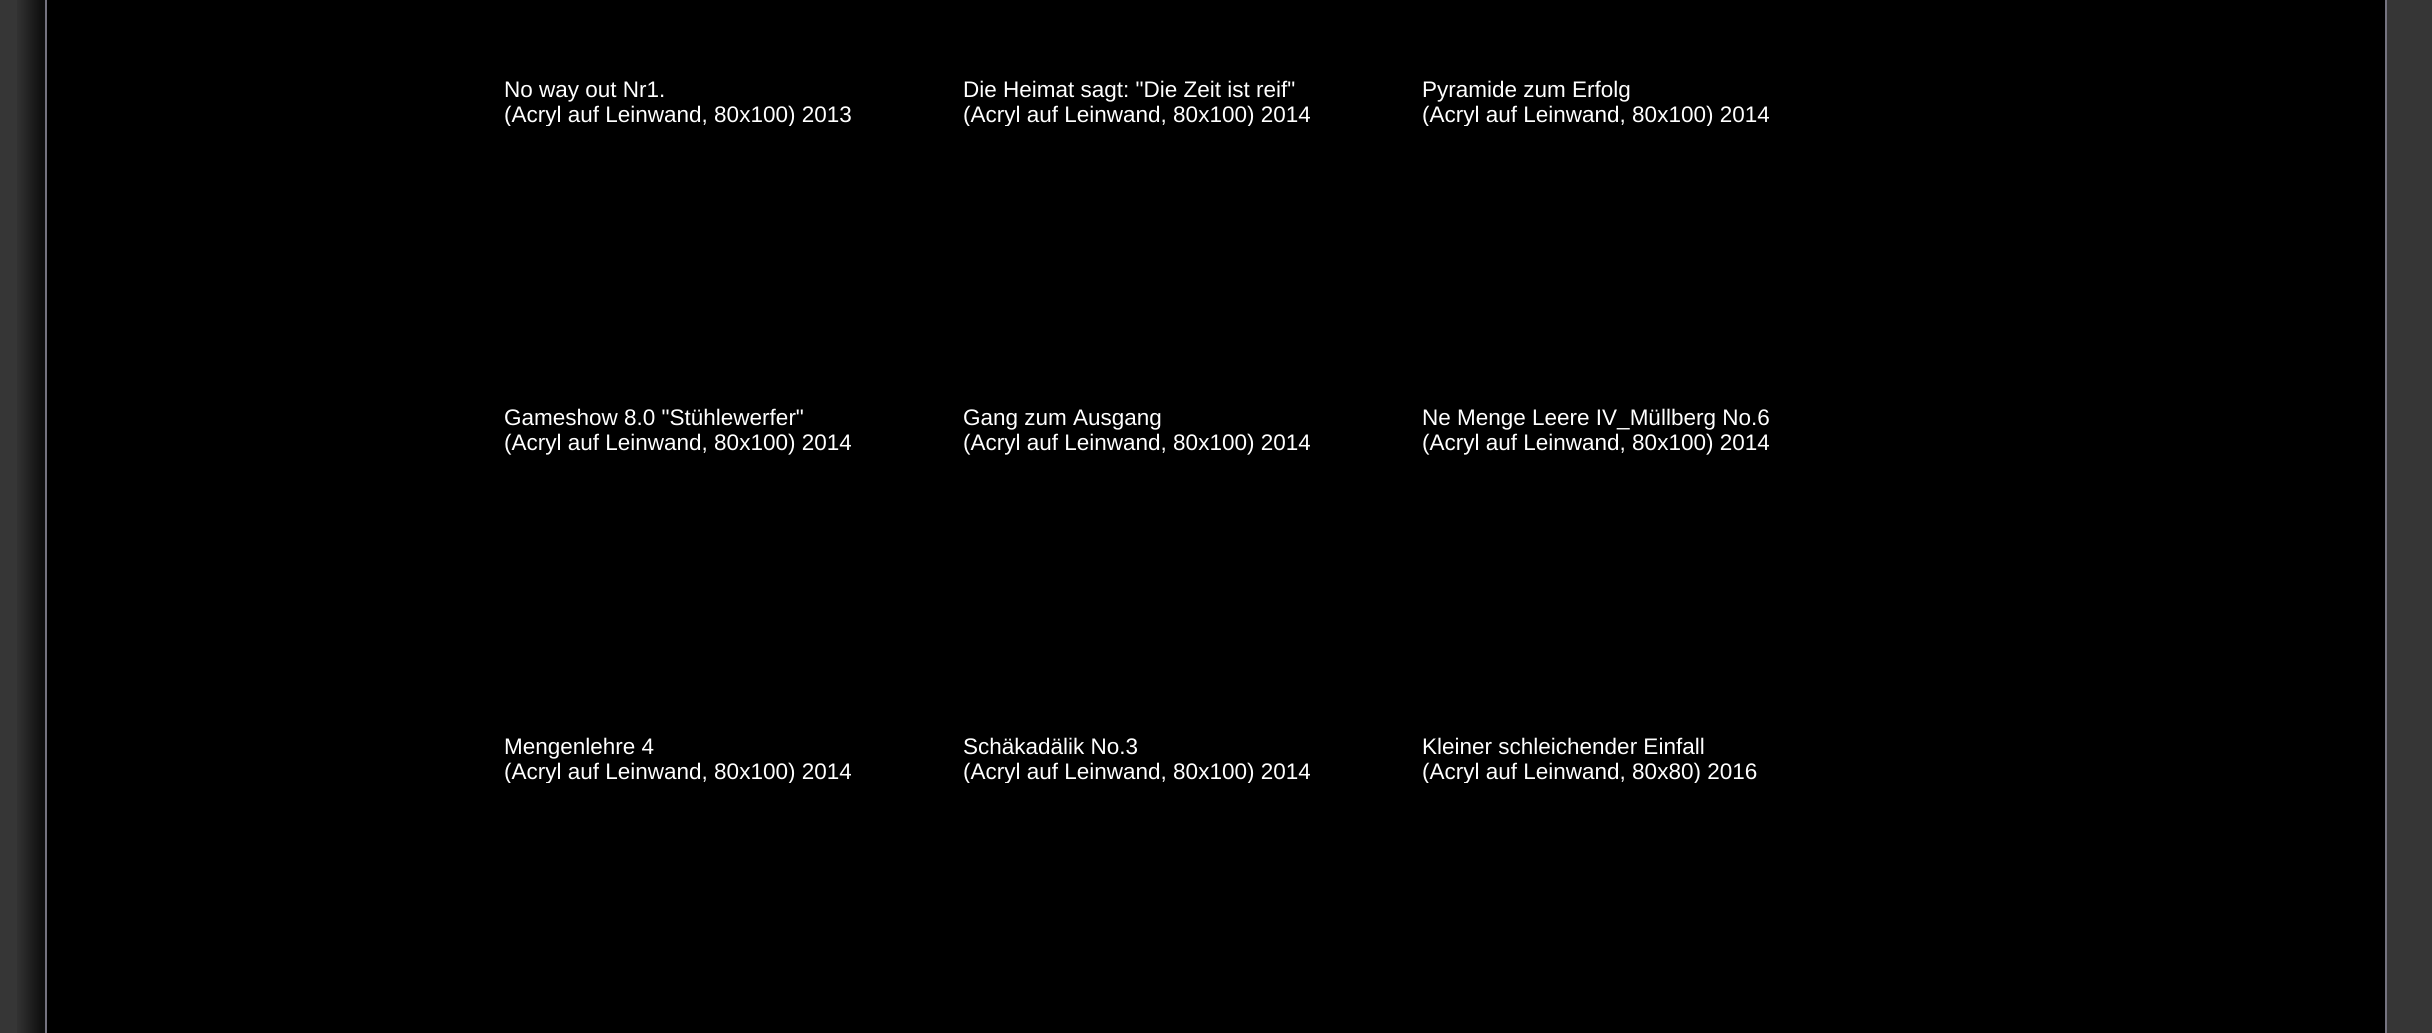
import math
import cairocffi as cairo

surface = cairo.ImageSurface(cairo.FORMAT_RGB24, 2432, 1033)
ctx = cairo.Context(surface)
options = cairo.FontOptions()
options.set_hint_metrics(cairo.HINT_METRICS_OFF)
options.set_hint_style(cairo.HINT_STYLE_NONE)
ctx.set_font_options(options)
ctx.set_miter_limit(4)


def rgb(r, g, b):
    ctx.set_source_rgb(r / 255, g / 255, b / 255)


def face(family, size, italic, bold):
    ctx.select_font_face(family, cairo.FONT_SLANT_ITALIC if italic else cairo.FONT_SLANT_NORMAL, cairo.FONT_WEIGHT_BOLD if bold else cairo.FONT_WEIGHT_NORMAL)
    ctx.set_font_size(size)


def label(x, y, s):
    ctx.move_to(x, y)
    ctx.show_text(s)


def rect(x, y, w, h):
    ctx.rectangle(x, y, w, h)
    ctx.fill()


def image(path, x, y, w, h):
    ctx.save()
    ctx.set_source_surface(cairo.ImageSurface.create_from_png(path), x, y)
    ctx.rectangle(x, y, w, h)
    ctx.fill()
    ctx.restore()


rgb(54, 54, 54)
ctx.paint()
image('image0.png', 17, 0, 28, 1033)
rgb(117, 115, 128)
rect(2385, 0, 2, 1033)
rect(45, 0, 2, 1033)
rgb(0, 0, 0)
rect(47, 0, 2338, 1033)
face('Liberation Sans', 22.5, 0, 0)
rgb(255, 255, 255)
label(504, 97, 'No way out Nr1.')
ctx.save()
ctx.rectangle(504, 77, 450, 49)
ctx.clip()
label(504, 122, '(Acryl auf Leinwand, 80x100) 2013')
ctx.restore()
label(963, 97, 'Die Heimat sagt: "Die Zeit ist reif"')
ctx.save()
ctx.rectangle(963, 77, 450, 49)
ctx.clip()
label(963, 122, '(Acryl auf Leinwand, 80x100) 2014')
ctx.restore()
label(1422, 97, 'Pyramide zum Erfolg')
ctx.save()
ctx.rectangle(1422, 77, 450, 49)
ctx.clip()
label(1422, 122, '(Acryl auf Leinwand, 80x100) 2014')
ctx.restore()
label(504, 425, 'Gameshow 8.0 "Stühlewerfer"')
label(504, 450, '(Acryl auf Leinwand, 80x100) 2014')
label(963, 425, 'Gang zum Ausgang')
label(963, 450, '(Acryl auf Leinwand, 80x100) 2014')
label(1422, 425, 'Ne Menge Leere IV_Müllberg No.6')
label(1422, 450, '(Acryl auf Leinwand, 80x100) 2014')
label(504, 754, 'Mengenlehre 4')
ctx.save()
ctx.rectangle(504, 734, 450, 49)
ctx.clip()
label(504, 779, '(Acryl auf Leinwand, 80x100) 2014')
ctx.restore()
label(963, 754, 'Schäkadälik No.3')
ctx.save()
ctx.rectangle(963, 734, 450, 49)
ctx.clip()
label(963, 779, '(Acryl auf Leinwand, 80x100) 2014')
ctx.restore()
label(1422, 754, 'Kleiner schleichender Einfall')
ctx.save()
ctx.rectangle(1422, 734, 450, 49)
ctx.clip()
label(1422, 779, '(Acryl auf Leinwand, 80x80) 2016')
ctx.restore()
surface.write_to_png('render.png')
